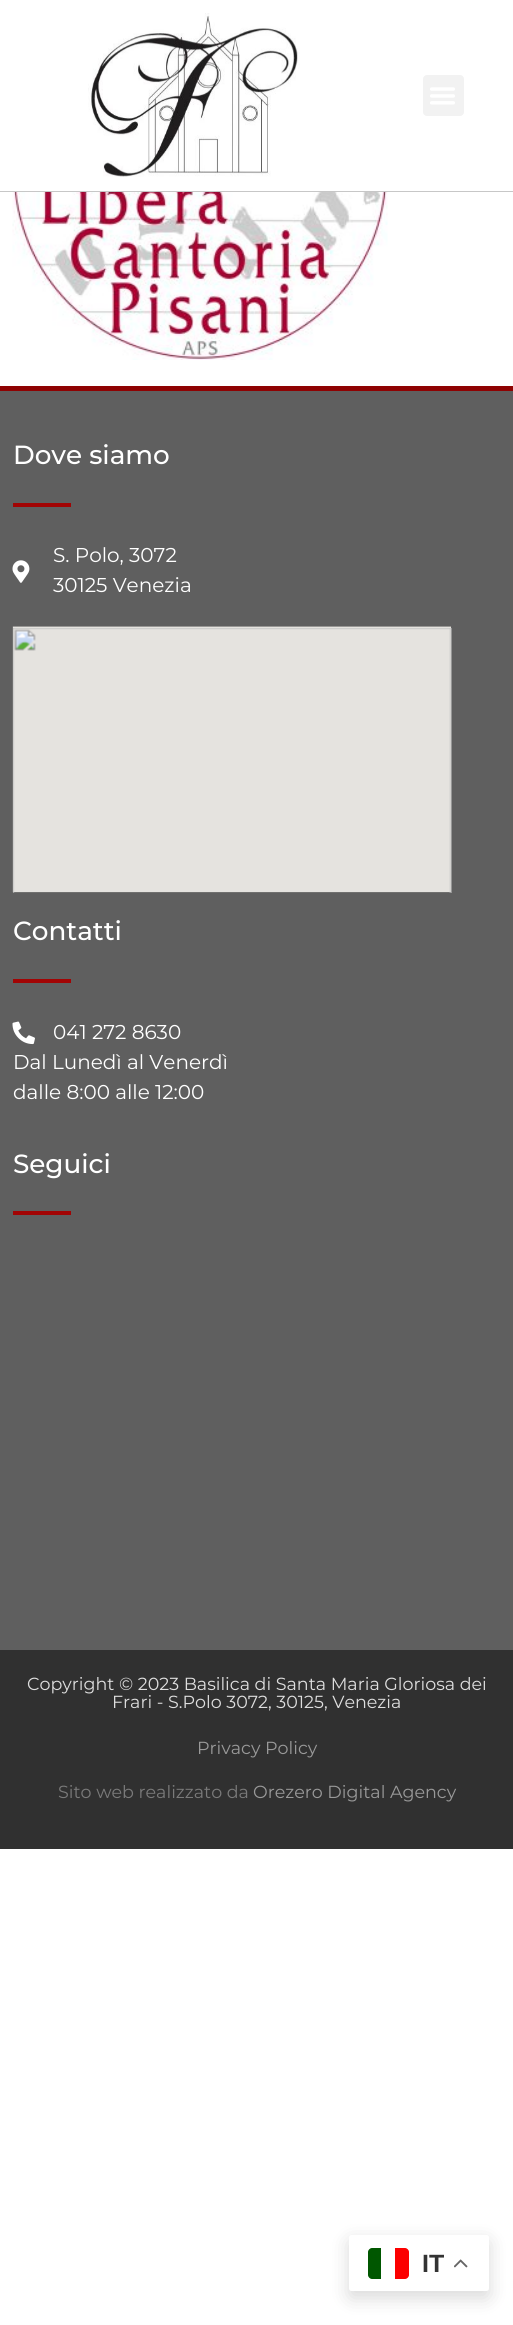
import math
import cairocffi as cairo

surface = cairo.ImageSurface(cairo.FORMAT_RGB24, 513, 2325)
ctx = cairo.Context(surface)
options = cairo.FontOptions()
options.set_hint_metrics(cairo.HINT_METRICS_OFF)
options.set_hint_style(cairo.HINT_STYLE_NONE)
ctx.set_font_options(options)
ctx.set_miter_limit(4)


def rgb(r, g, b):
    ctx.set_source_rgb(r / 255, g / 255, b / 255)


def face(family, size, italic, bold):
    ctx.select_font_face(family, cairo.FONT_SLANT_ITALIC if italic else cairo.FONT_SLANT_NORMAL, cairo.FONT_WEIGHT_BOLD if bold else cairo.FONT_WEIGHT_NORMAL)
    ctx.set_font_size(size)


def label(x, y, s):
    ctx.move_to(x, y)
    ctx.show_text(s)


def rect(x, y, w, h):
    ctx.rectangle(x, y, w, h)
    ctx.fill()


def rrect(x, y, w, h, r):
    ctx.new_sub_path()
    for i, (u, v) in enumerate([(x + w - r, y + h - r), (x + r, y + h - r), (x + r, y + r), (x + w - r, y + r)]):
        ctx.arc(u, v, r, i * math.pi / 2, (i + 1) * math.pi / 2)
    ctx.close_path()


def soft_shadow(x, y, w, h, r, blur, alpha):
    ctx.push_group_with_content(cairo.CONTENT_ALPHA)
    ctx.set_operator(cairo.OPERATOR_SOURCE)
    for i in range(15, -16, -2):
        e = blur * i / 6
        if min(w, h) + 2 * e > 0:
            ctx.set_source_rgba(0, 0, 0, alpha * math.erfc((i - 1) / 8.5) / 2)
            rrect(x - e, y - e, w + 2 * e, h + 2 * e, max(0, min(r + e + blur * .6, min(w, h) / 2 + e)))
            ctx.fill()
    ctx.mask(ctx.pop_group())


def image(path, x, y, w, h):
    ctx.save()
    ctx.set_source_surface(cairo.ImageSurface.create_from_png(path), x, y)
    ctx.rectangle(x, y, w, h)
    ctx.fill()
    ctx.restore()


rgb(255, 255, 255)
ctx.paint()
rgb(199, 199, 199)
rect(0, 191, 513, 1)
image('image0.png', 88, 13, 212, 164)
rgb(242, 242, 242)
rrect(423, 75, 41, 41, 4)
ctx.fill()
image('image1.png', 430, 87, 25, 18)
image('image2.png', 12, 192, 376, 168)
rgb(95, 95, 95)
rect(0, 391, 513, 1259)
rgb(142, 2, 2)
rect(0, 386, 513, 5)
face('Montserrat Medium', 26.25, 0, 0)
rgb(255, 255, 255)
label(13, 464, 'Dove siamo')
rgb(162, 4, 4)
rect(13, 503, 58, 4)
image('image3.png', 12, 560, 18, 23)
face('Montserrat', 20, 0, 0)
rgb(255, 255, 255)
label(53, 562, 'S. Polo, 3072')
label(53, 592, '30125 Venezia')
image('image4.png', 12, 626, 440, 267)
face('Montserrat Medium', 26.25, 0, 0)
label(13, 940, 'Contatti')
rgb(162, 4, 4)
rect(13, 979, 58, 4)
image('image5.png', 12, 1021, 23, 24)
face('Montserrat', 20, 0, 0)
rgb(255, 255, 255)
label(53, 1039, '041 272 8630')
label(13, 1069, 'Dal Lunedì al Venerdì')
label(13, 1099, 'dalle 8:00 alle 12:00')
face('Montserrat Medium', 26.25, 0, 0)
label(13, 1173, 'Seguici')
rgb(162, 4, 4)
rect(13, 1211, 58, 4)
rgb(48, 48, 48)
rect(0, 1650, 513, 199)
face('Montserrat', 17.5, 0, 0)
rgb(222, 222, 222)
label(27, 1690, 'Copyright © 2023 Basilica di Santa Maria Gloriosa dei')
label(112, 1708, 'Frari - S.Polo 3072, 30125, Venezia')
rgb(153, 153, 153)
label(197, 1754, 'Privacy Policy')
rgb(122, 122, 122)
label(58, 1798, 'Sito web realizzato da')
rgb(153, 153, 153)
label(253, 1798, 'Orezero Digital Agency')
rgb(0, 0, 0)
soft_shadow(349, 2241, 140, 57, 2.5, 9.5, 0.15)
rgb(255, 255, 255)
rrect(349, 2235, 140, 56, 2.5)
ctx.fill()
rgb(0, 87, 0)
ctx.new_path()
ctx.move_to(372, 2248)
ctx.line_to(381, 2248)
ctx.line_to(381, 2279)
ctx.line_to(372, 2279)
ctx.curve_to(370, 2279, 368, 2277, 368, 2275)
ctx.line_to(368, 2252)
ctx.curve_to(368, 2250, 370, 2248, 372, 2248)
ctx.close_path()
ctx.fill()
rgb(252, 0, 0)
ctx.new_path()
ctx.move_to(395, 2248)
ctx.line_to(405, 2248)
ctx.curve_to(407, 2248, 409, 2250, 409, 2252)
ctx.line_to(409, 2275)
ctx.curve_to(409, 2277, 407, 2279, 405, 2279)
ctx.line_to(395, 2279)
ctx.close_path()
ctx.fill()
face('Liberation Sans', 25, 0, 1)
rgb(51, 51, 51)
label(422, 2272, 'IT')
image('image6.png', 454, 2259, 14, 9)
surface.write_to_png('render.png')
